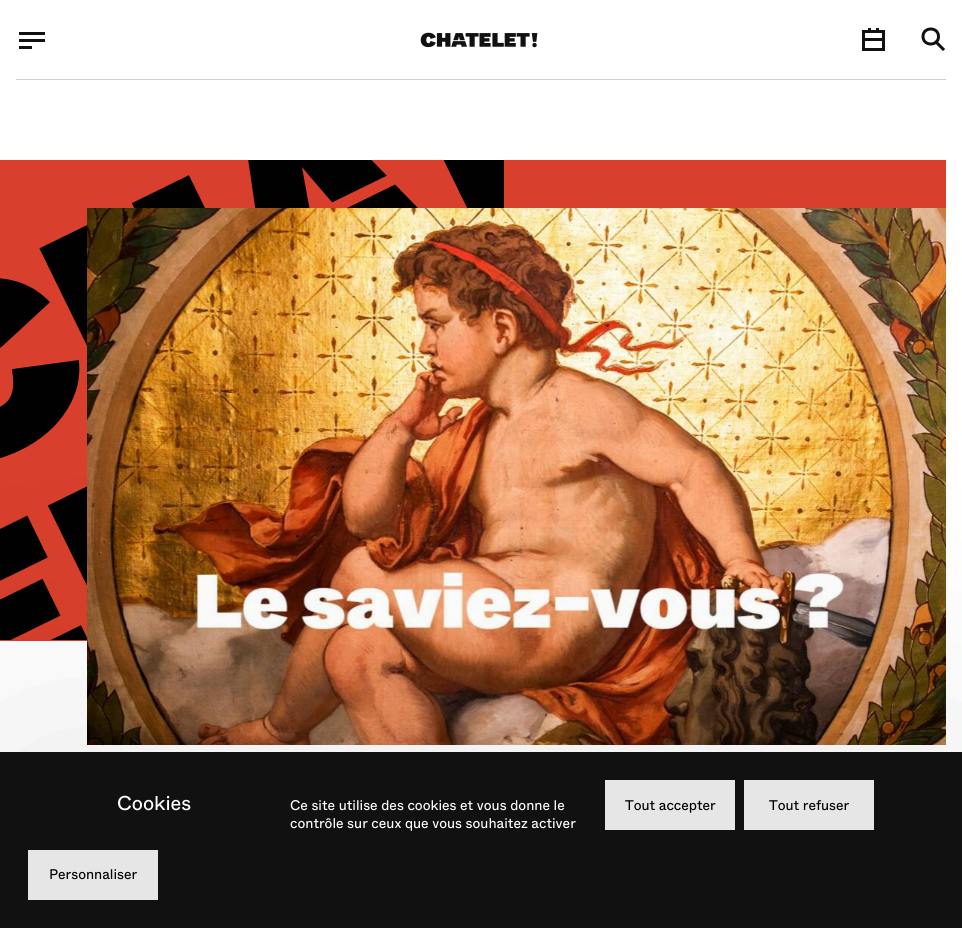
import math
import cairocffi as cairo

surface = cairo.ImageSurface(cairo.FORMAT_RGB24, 962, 928)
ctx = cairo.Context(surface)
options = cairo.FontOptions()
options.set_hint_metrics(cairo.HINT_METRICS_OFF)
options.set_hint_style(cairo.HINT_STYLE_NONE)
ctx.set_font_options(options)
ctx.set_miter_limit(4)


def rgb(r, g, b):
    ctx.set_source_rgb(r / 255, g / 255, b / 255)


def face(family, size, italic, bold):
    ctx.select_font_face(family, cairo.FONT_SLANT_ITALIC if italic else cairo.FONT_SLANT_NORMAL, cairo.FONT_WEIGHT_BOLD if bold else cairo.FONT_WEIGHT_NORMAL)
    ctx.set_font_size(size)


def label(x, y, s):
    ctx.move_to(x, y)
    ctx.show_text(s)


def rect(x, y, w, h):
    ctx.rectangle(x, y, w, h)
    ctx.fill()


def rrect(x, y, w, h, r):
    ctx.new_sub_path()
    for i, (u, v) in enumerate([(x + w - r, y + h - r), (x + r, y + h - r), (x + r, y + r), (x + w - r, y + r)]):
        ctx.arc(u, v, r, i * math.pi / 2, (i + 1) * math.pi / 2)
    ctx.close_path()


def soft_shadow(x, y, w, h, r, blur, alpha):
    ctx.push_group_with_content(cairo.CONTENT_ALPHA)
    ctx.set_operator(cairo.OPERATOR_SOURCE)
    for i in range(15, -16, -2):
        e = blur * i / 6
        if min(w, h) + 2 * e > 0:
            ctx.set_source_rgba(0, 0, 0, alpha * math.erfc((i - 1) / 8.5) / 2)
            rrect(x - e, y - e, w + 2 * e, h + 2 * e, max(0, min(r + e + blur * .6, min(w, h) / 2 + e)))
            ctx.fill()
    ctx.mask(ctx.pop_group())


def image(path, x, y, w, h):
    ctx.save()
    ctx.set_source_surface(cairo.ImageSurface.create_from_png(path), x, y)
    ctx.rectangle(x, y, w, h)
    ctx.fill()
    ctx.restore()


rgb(255, 255, 255)
ctx.paint()
rgb(17, 17, 17)
rect(19, 32, 26, 3)
rect(19, 39, 26, 3)
rect(19, 46, 13, 3)
image('image0.png', 420, 32, 118, 16)
image('image1.png', 862, 28, 23, 23)
ctx.new_path()
ctx.move_to(943, 49)
ctx.line_to(936, 42)
ctx.move_to(938.5, 36.5)
ctx.curve_to(938.5, 46.5, 923, 46.5, 923, 36.5)
ctx.curve_to(923, 26.5, 938.5, 26.5, 938.5, 36.5)
ctx.close_path()
ctx.set_line_width(3)
ctx.set_line_cap(cairo.LINE_CAP_SQUARE)
ctx.set_line_join(cairo.LINE_JOIN_ROUND)
ctx.stroke()
rgb(207, 207, 207)
rect(16, 79, 930, 1)
rgb(216, 63, 44)
rect(0, 160, 946, 481)
image('image2.png', 0, 160, 504, 480)
image('image3.png', 87, 208, 859, 537)
rgb(0, 0, 0)
soft_shadow(0, 752, 962, 176, 0, 150, 0.1)
rgb(17, 17, 17)
rect(0, 752, 962, 176)
face('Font', 20, 0, 0)
rgb(255, 255, 255)
label(117, 810, 'Cookies')
face('Font', 14, 0, 0)
label(290, 810, 'Ce site utilise des cookies et vous donne le')
label(290, 828, 'contrôle sur ceux que vous souhaitez activer')
rgb(230, 230, 230)
rect(605, 780, 130, 50)
rgb(1, 1, 1)
label(625, 810, 'Tout accepter')
rgb(230, 230, 230)
rect(744, 780, 130, 50)
rgb(1, 1, 1)
label(769, 810, 'Tout refuser')
rgb(230, 230, 230)
rect(28, 850, 130, 50)
rgb(1, 1, 1)
label(49, 879, 'Personnaliser')
surface.write_to_png('render.png')
